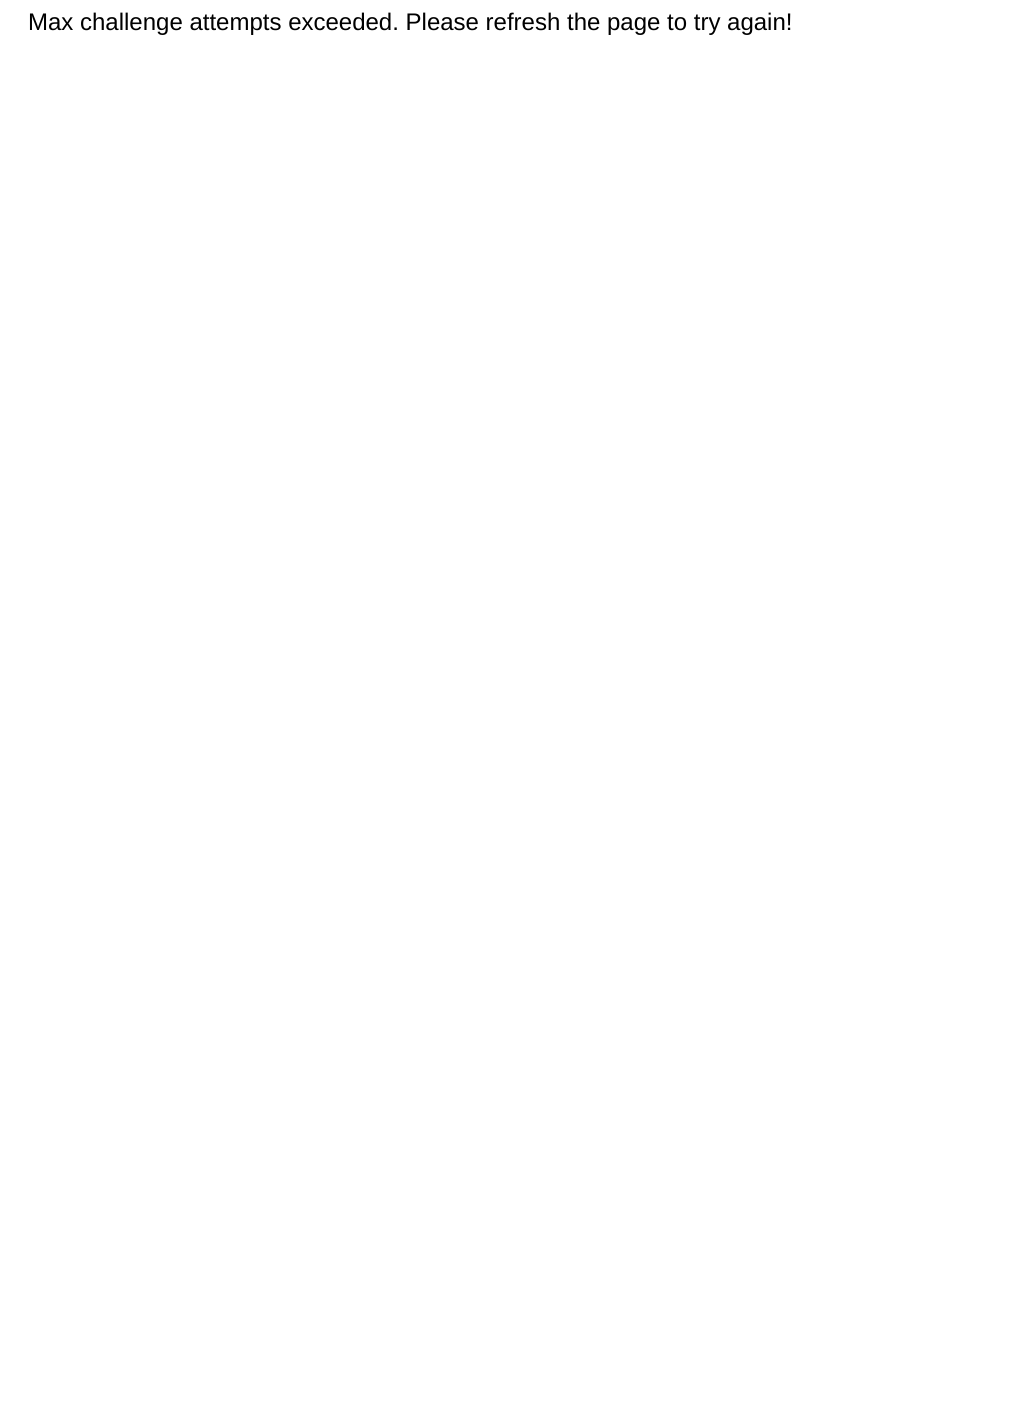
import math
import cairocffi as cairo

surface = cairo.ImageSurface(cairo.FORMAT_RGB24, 1011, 1403)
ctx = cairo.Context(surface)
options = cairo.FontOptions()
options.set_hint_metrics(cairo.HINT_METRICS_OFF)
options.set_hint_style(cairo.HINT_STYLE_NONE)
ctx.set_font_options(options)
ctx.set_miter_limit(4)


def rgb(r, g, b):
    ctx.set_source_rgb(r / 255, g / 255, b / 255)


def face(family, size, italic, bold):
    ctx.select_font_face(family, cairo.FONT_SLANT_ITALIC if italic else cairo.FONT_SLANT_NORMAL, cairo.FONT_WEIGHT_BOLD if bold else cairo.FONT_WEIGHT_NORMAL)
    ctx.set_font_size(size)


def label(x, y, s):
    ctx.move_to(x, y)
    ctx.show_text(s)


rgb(255, 255, 255)
ctx.paint()
face('Liberation Sans', 24, 0, 0)
rgb(0, 0, 0)
label(28, 30, 'Max challenge attempts exceeded. Please refresh the page to try again!')
surface.write_to_png('render.png')
